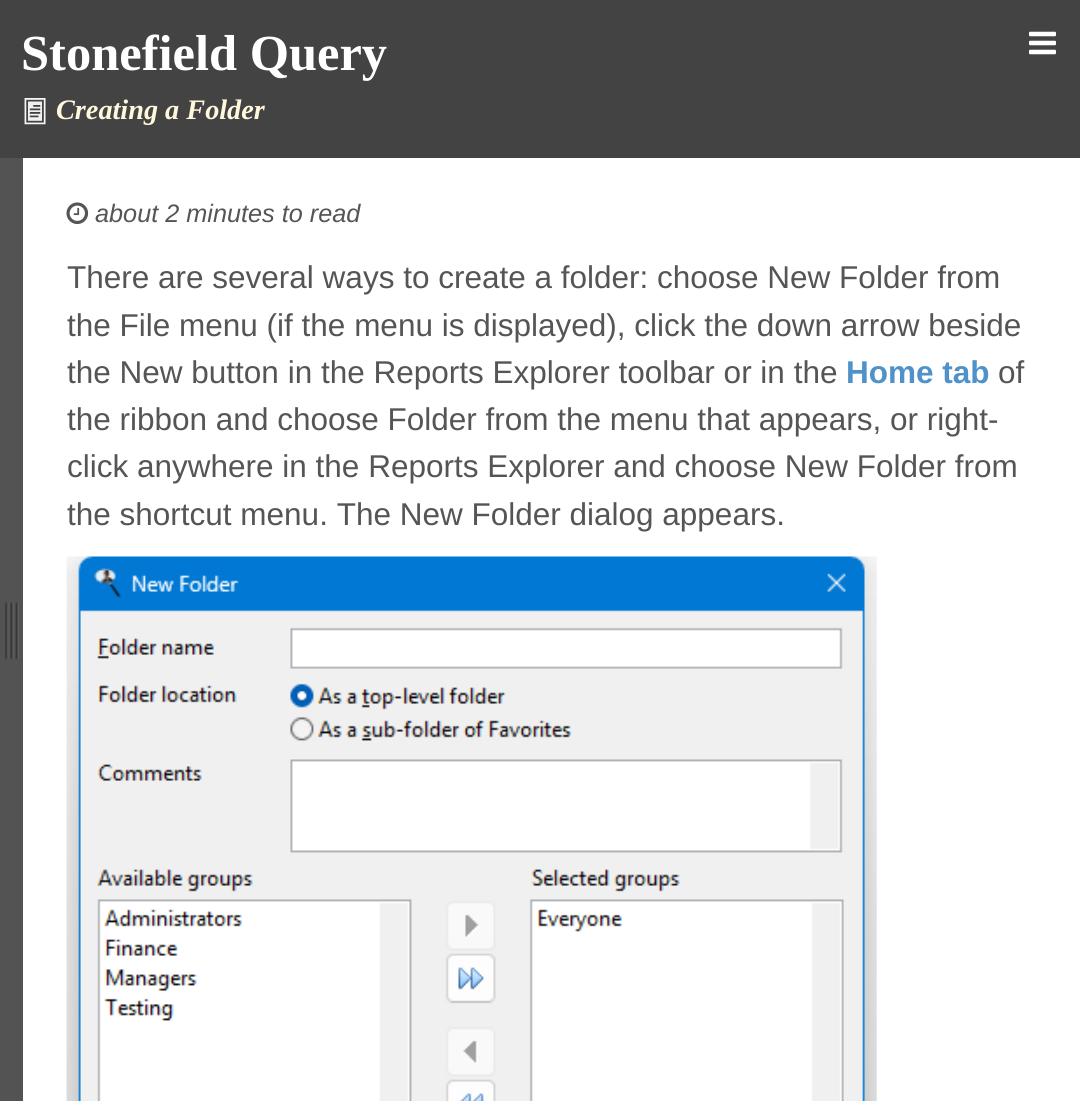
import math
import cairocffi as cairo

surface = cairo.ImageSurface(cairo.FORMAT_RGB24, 1080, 1101)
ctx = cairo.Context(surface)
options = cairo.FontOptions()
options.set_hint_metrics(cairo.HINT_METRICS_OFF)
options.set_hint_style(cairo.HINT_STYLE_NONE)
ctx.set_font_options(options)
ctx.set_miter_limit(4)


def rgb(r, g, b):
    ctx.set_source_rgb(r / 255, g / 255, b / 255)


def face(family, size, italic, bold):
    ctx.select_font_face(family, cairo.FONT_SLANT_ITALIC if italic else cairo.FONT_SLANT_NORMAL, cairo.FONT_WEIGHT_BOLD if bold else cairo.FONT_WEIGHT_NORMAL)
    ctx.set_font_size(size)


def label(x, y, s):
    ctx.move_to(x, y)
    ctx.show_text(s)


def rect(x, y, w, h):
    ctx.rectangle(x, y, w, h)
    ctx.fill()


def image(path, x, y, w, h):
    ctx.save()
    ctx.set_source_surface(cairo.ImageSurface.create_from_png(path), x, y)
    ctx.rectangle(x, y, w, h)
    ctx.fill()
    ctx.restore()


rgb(255, 255, 255)
ctx.paint()
rgb(67, 67, 67)
rect(0, 0, 1080, 158)
face('Liberation Serif', 50.5, 0, 1)
rgb(255, 255, 255)
label(21, 70, 'Stonefield Query')
image('image0.png', 1029, 31, 27, 24)
image('image1.png', 24, 98, 22, 27)
face('Liberation Serif', 28.25, 1, 1)
rgb(255, 248, 220)
label(56, 119, 'Creating a Folder')
rgb(83, 83, 83)
rect(0, 158, 23, 943)
image('image2.png', 5, 602, 14, 58)
image('image3.png', 66, 202, 23, 23)
face('Liberation Sans', 25.25, 1, 0)
rgb(85, 85, 85)
label(95, 222, 'about 2 minutes to read')
face('Liberation Sans', 31.5, 0, 0)
label(67, 288, 'There are several ways to create a folder: choose New Folder from')
label(67, 336, 'the File menu (if the menu is displayed), click the down arrow beside')
label(67, 383, 'the New button in the Reports Explorer toolbar or in the')
face('Liberation Sans', 31.5, 0, 1)
rgb(78, 146, 201)
label(846, 383, 'Home tab')
face('Liberation Sans', 31.5, 0, 0)
rgb(85, 85, 85)
label(998, 383, 'of')
label(67, 430, 'the ribbon and choose Folder from the menu that appears, or right-')
label(67, 477, 'click anywhere in the Reports Explorer and choose New Folder from')
label(67, 525, 'the shortcut menu. The New Folder dialog appears.')
image('image4.png', 66, 556, 811, 545)
surface.write_to_png('render.png')
